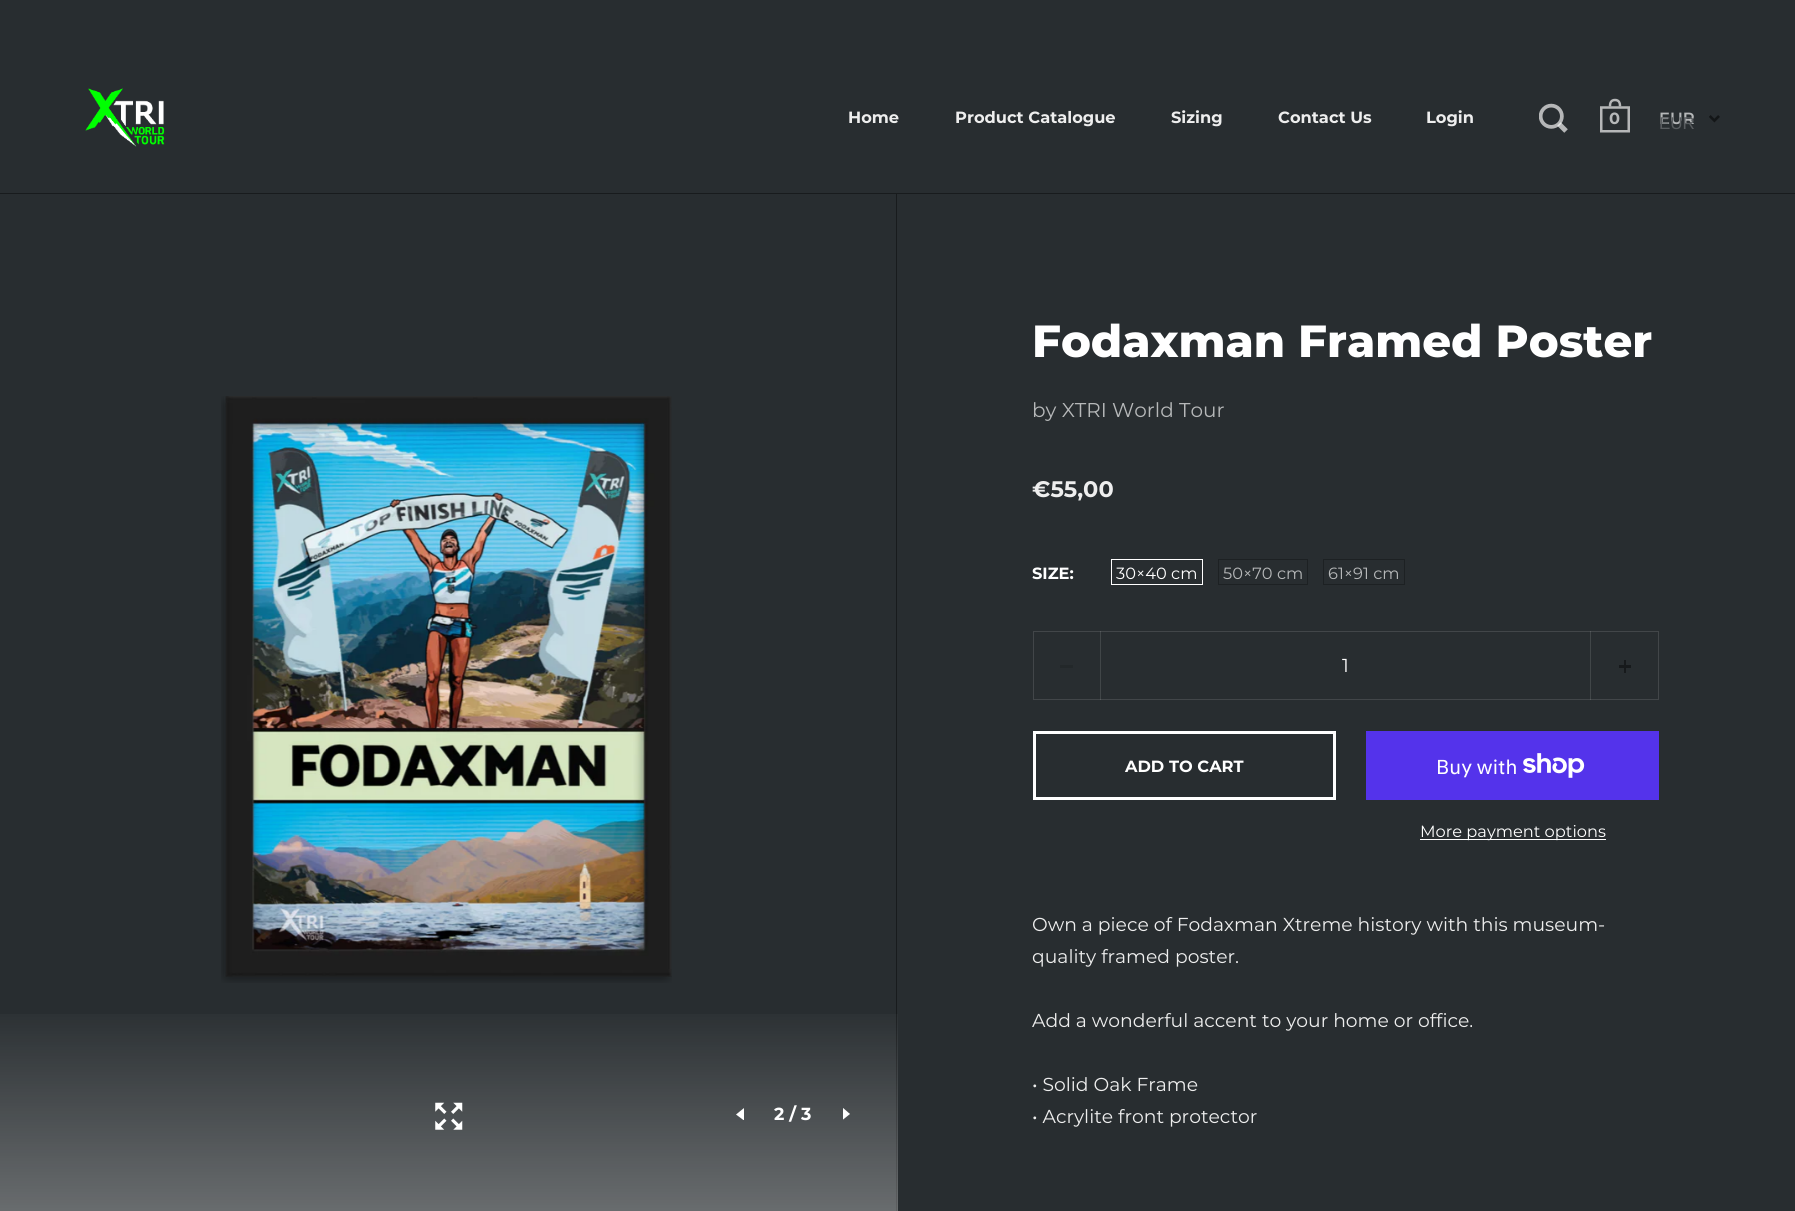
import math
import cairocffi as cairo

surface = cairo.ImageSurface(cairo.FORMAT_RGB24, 1795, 1211)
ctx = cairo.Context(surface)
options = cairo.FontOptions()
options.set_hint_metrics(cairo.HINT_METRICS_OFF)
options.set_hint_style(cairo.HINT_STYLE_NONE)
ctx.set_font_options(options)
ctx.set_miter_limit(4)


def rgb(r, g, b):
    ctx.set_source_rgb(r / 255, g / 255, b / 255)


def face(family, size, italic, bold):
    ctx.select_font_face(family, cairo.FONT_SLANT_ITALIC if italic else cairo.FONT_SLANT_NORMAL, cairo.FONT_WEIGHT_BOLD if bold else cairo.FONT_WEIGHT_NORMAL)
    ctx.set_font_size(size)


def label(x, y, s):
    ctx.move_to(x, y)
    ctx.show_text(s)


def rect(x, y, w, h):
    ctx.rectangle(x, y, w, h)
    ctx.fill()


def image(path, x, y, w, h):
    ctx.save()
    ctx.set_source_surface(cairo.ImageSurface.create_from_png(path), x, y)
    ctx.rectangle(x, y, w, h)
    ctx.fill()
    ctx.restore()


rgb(40, 45, 48)
ctx.paint()
rgb(24, 27, 29)
rect(0, 193, 1795, 1)
image('image0.png', 85, 88, 80, 59)
face('Montserrat', 16.25, 0, 1)
rgb(238, 238, 238)
label(848, 123, 'Home')
label(955, 123, 'Product Catalogue')
label(1171, 123, 'Sizing')
label(1278, 123, 'Contact Us')
label(1426, 123, 'Login')
image('image1.png', 1539, 103, 29, 30)
image('image2.png', 1600, 98, 30, 35)
rgb(182, 184, 185)
label(1609, 124, '0')
face('Montserrat SemiBold', 16.25, 0, 0)
label(1659, 124, 'EUR')
image('image3.png', 1709, 115, 11, 8)
face('Liberation Sans', 17, 0, 0)
rgb(88, 92, 95)
label(1659, 129, 'EUR')
image('image4.png', 221, 396, 451, 587)
rgb(24, 27, 29)
rect(896, 194, 1, 1017)
gradient = cairo.LinearGradient(449, 999, 449, 1211)
gradient.add_color_stop_rgba(0, 1, 1, 1, 0)
gradient.add_color_stop_rgba(1, 1, 1, 1, 0.3)
ctx.set_source(gradient)
rect(0, 1014, 898, 197)
image('image5.png', 435, 1102, 28, 28)
ctx.save()
ctx.rectangle(736, 1108, 8, 12)
ctx.clip()
rgb(255, 255, 255)
ctx.new_path()
ctx.move_to(736, 1114.5)
ctx.line_to(744, 1120.5)
ctx.line_to(744, 1115.5)
ctx.line_to(775, 1115.5)
ctx.line_to(775, 1113)
ctx.line_to(744, 1113)
ctx.line_to(744, 1108)
ctx.close_path()
ctx.fill()
ctx.restore()
face('Montserrat', 17.5, 0, 1)
rgb(255, 255, 255)
label(774, 1120, '2 / 3')
ctx.save()
ctx.rectangle(843, 1108, 7, 12)
ctx.clip()
ctx.new_path()
ctx.move_to(850, 1114)
ctx.line_to(842.5, 1107.5)
ctx.line_to(842.5, 1112.5)
ctx.line_to(811, 1112.5)
ctx.line_to(811, 1115)
ctx.line_to(842.5, 1115)
ctx.line_to(842.5, 1120)
ctx.close_path()
ctx.fill()
ctx.restore()
face('Montserrat ExtraBold', 45, 0, 0)
label(1032, 357, 'Fodaxman Framed Poster')
face('Montserrat', 20, 0, 0)
rgb(182, 184, 185)
label(1032, 417, 'by XTRI World Tour')
face('Montserrat', 22.5, 0, 1)
rgb(238, 238, 238)
label(1032, 497, '€55,00')
face('Montserrat', 16.25, 0, 1)
rgb(255, 255, 255)
label(1032, 579, 'SIZE:')
ctx.rectangle(1111.5, 559.5, 91, 25)
ctx.set_line_width(1)
ctx.stroke()
face('Montserrat', 16.25, 0, 0)
label(1116, 579, '30×40 cm')
ctx.rectangle(1218.5, 559.5, 89, 25)
rgb(29, 33, 35)
ctx.stroke()
rgb(182, 184, 185)
label(1223, 579, '50×70 cm')
ctx.rectangle(1323.5, 559.5, 81, 25)
rgb(29, 33, 35)
ctx.stroke()
rgb(182, 184, 185)
label(1328, 579, '61×91 cm')
ctx.rectangle(1033.5, 631.5, 625, 68)
rgb(66, 70, 73)
ctx.stroke()
ctx.set_source_rgba(1, 1, 1, 0.12)
rect(1100, 631, 1, 69)
rgb(35, 40, 42)
rect(1060, 665, 13, 3)
face('Montserrat', 18.75, 0, 0)
rgb(255, 255, 255)
label(1342, 672, '1')
ctx.set_source_rgba(1, 1, 1, 0.12)
rect(1590, 631, 1, 69)
rgb(23, 26, 28)
rect(1619, 665, 12, 3)
rect(1624, 660, 2, 13)
ctx.rectangle(1034.5, 732.5, 300, 66)
rgb(255, 255, 255)
ctx.set_line_width(3)
ctx.stroke()
face('Montserrat', 16.25, 0, 1)
label(1125, 772, 'ADD TO CART')
rgb(84, 51, 235)
rect(1366, 731, 293, 69)
face('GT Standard', 20, 0, 0)
rgb(255, 255, 255)
label(1436, 774, 'Buy with')
image('image6.png', 1523, 753, 62, 25)
rect(1420, 839, 186, 1)
face('Montserrat', 16.25, 0, 0)
label(1420, 837, 'More payment options')
face('Montserrat', 18.75, 0, 0)
rgb(238, 238, 238)
label(1032, 931, 'Own a piece of Fodaxman Xtreme history with this museum-')
label(1032, 963, 'quality framed poster.')
label(1032, 1027, 'Add a wonderful accent to your home or office.')
label(1032, 1091, '• Solid Oak Frame')
label(1032, 1123, '• Acrylite front protector')
surface.write_to_png('render.png')
